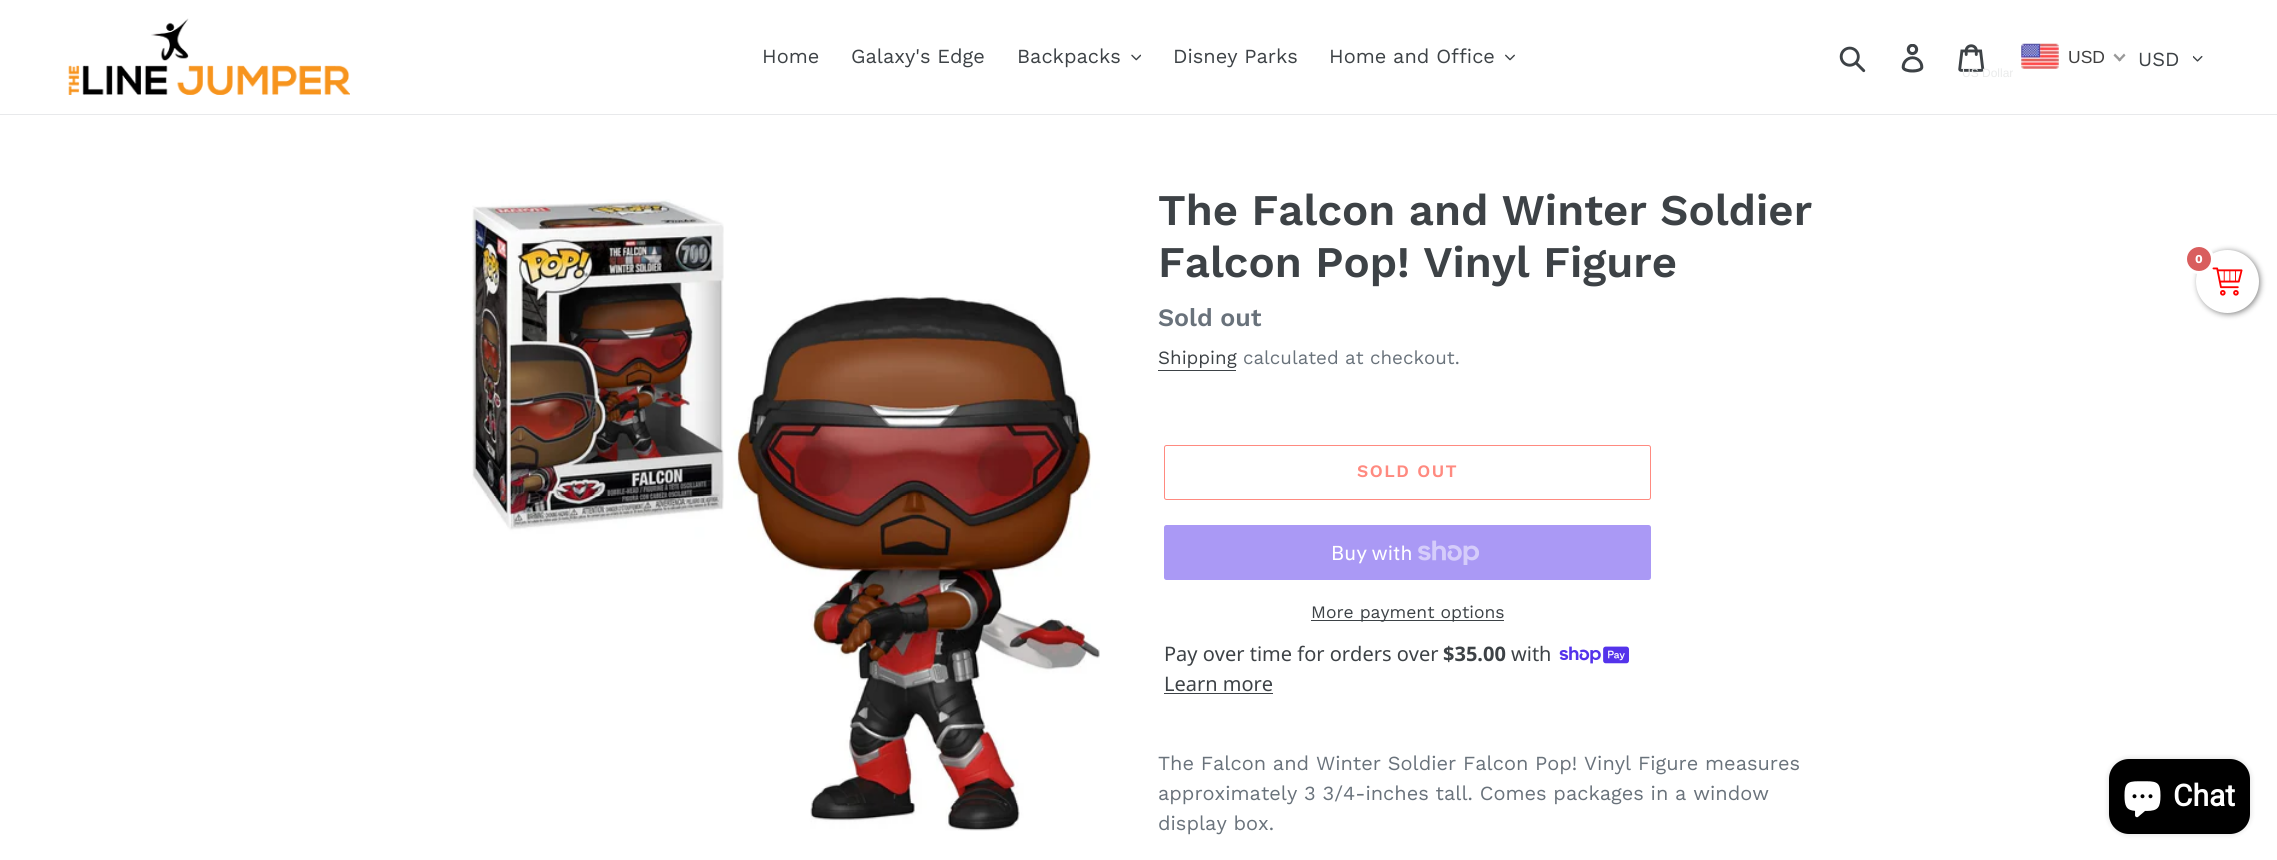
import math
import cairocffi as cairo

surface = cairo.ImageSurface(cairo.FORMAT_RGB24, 2277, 860)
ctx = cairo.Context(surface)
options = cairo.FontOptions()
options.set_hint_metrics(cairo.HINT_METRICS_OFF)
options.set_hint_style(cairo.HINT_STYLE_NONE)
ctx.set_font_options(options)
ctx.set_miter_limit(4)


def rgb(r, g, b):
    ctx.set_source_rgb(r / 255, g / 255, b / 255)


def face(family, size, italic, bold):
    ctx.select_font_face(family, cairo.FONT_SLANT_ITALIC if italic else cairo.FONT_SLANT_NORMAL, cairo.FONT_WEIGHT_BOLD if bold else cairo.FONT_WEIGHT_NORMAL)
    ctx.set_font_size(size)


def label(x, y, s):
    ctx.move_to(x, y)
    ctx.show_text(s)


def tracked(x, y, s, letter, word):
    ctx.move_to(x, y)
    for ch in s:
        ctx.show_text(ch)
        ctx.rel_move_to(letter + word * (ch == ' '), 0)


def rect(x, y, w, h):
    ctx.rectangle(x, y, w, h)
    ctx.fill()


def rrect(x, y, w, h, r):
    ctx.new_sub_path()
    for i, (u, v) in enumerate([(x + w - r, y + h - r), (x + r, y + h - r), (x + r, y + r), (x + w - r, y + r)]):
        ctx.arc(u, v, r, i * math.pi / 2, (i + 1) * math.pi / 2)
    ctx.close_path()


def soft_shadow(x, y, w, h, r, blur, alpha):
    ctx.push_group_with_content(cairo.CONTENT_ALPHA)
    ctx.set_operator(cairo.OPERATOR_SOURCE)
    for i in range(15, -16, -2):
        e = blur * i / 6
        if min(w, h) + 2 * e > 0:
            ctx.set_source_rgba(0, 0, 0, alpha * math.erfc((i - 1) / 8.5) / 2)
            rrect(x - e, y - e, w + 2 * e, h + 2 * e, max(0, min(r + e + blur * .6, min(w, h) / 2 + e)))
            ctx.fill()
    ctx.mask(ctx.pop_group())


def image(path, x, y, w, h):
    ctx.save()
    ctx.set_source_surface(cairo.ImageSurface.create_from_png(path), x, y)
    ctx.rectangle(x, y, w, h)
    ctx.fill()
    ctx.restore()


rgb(255, 255, 255)
ctx.paint()
rgb(232, 233, 235)
rect(0, 114, 2277, 1)
image('image0.png', 68, 18, 282, 77)
face('Work Sans', 20, 0, 0)
rgb(61, 66, 70)
label(762, 63, 'Home')
label(851, 63, 'Galaxy\'s Edge')
label(1017, 63, 'Backpacks')
image('image1.png', 1131, 54, 10, 7)
label(1173, 63, 'Disney Parks')
label(1329, 63, 'Home and Office')
image('image2.png', 1505, 54, 10, 7)
image('image3.png', 1839, 46, 27, 27)
image('image4.png', 1901, 44, 23, 29)
image('image5.png', 1958, 44, 27, 28)
image('image6.png', 2021, 43, 38, 26)
face('Liberation Sans', 17.5, 0, 0)
rgb(64, 63, 63)
label(2068, 63, 'USD')
rgb(153, 153, 153)
ctx.new_path()
ctx.move_to(2124, 53.5)
ctx.line_to(2125.5, 55.5)
ctx.line_to(2119.5, 61.5)
ctx.line_to(2118, 60)
ctx.close_path()
ctx.fill()
ctx.new_path()
ctx.move_to(2115, 53.5)
ctx.line_to(2121.5, 60)
ctx.line_to(2119.5, 61.5)
ctx.line_to(2113.5, 55.5)
ctx.close_path()
ctx.fill()
face('Liberation Sans', 12, 0, 0)
rgb(234, 235, 235)
label(1962, 77, 'US Dollar')
face('Work Sans', 20, 0, 0)
rgb(61, 66, 70)
label(2138, 66, 'USD')
image('image7.png', 2193, 55, 10, 7)
image('image8.png', 472, 199, 628, 632)
face('Work Sans SemiBold', 43.75, 0, 0)
label(1158, 225, 'The Falcon and Winter Soldier')
label(1158, 277, 'Falcon Pop! Vinyl Figure')
face('Work Sans SemiBold', 25, 0, 0)
rgb(105, 114, 123)
label(1158, 326, 'Sold out')
face('Work Sans', 18.75, 0, 0)
rgb(61, 66, 70)
label(1158, 364, 'Shipping')
rect(1158, 370, 78, 1)
rgb(105, 114, 123)
label(1243, 364, 'calculated at checkout.')
rrect(1164.5, 445.5, 486, 54, 2)
rgb(255, 138, 128)
ctx.set_line_width(1)
ctx.stroke()
face('Work Sans SemiBold', 17.5, 0, 0)
tracked(1357, 477, 'SOLD OUT', 1.5, 0)
rgb(170, 153, 245)
rrect(1164, 525, 487, 55, 2.5)
ctx.fill()
face('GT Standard', 20, 0, 0)
rgb(255, 255, 255)
label(1331, 560, 'Buy with')
image('image9.png', 1418, 540, 61, 25)
rgb(61, 66, 70)
rect(1311, 620, 193, 1)
face('Work Sans', 17.5, 0, 0)
label(1311, 618, 'More payment options')
face('Noto Sans', 20, 0, 0)
label(1164, 661, 'Pay over time for orders over')
face('Noto Sans', 20, 0, 1)
label(1443, 661, '$35.00')
face('Noto Sans', 20, 0, 0)
label(1511, 661, 'with')
image('image10.png', 1559, 646, 70, 18)
label(1164, 691, 'Learn more')
rect(1164, 693, 109, 1)
face('Work Sans', 20, 0, 0)
rgb(105, 114, 123)
label(1158, 770, 'The Falcon and Winter Soldier Falcon Pop! Vinyl Figure measures')
label(1158, 800, 'approximately 3 3/4-inches tall. Comes packages in a window')
label(1158, 830, 'display box.')
rgb(128, 128, 128)
soft_shadow(2198, 251, 62, 63, 31, 3, 1)
rgb(255, 255, 255)
ctx.arc(2227.5, 281.5, 31.5, 0, 2 * math.pi)
ctx.fill()
image('image11.png', 2212, 267, 31, 29)
rgb(217, 94, 94)
ctx.arc(2199, 259, 13.5, 0, 2 * math.pi)
ctx.fill_preserve()
rgb(255, 255, 255)
ctx.set_line_width(3)
ctx.stroke()
face('Work Sans', 12, 0, 1)
label(2195, 263, '0')
rgb(0, 0, 0)
soft_shadow(2109, 759, 141, 75, 20, 3, 0.15)
rgb(0, 0, 0)
rrect(2109, 759, 141, 75, 20)
ctx.fill()
image('image12.png', 2124, 781, 37, 37)
face('Roboto', 30, 0, 1)
rgb(255, 255, 255)
label(2173, 806, 'Chat')
surface.write_to_png('render.png')
